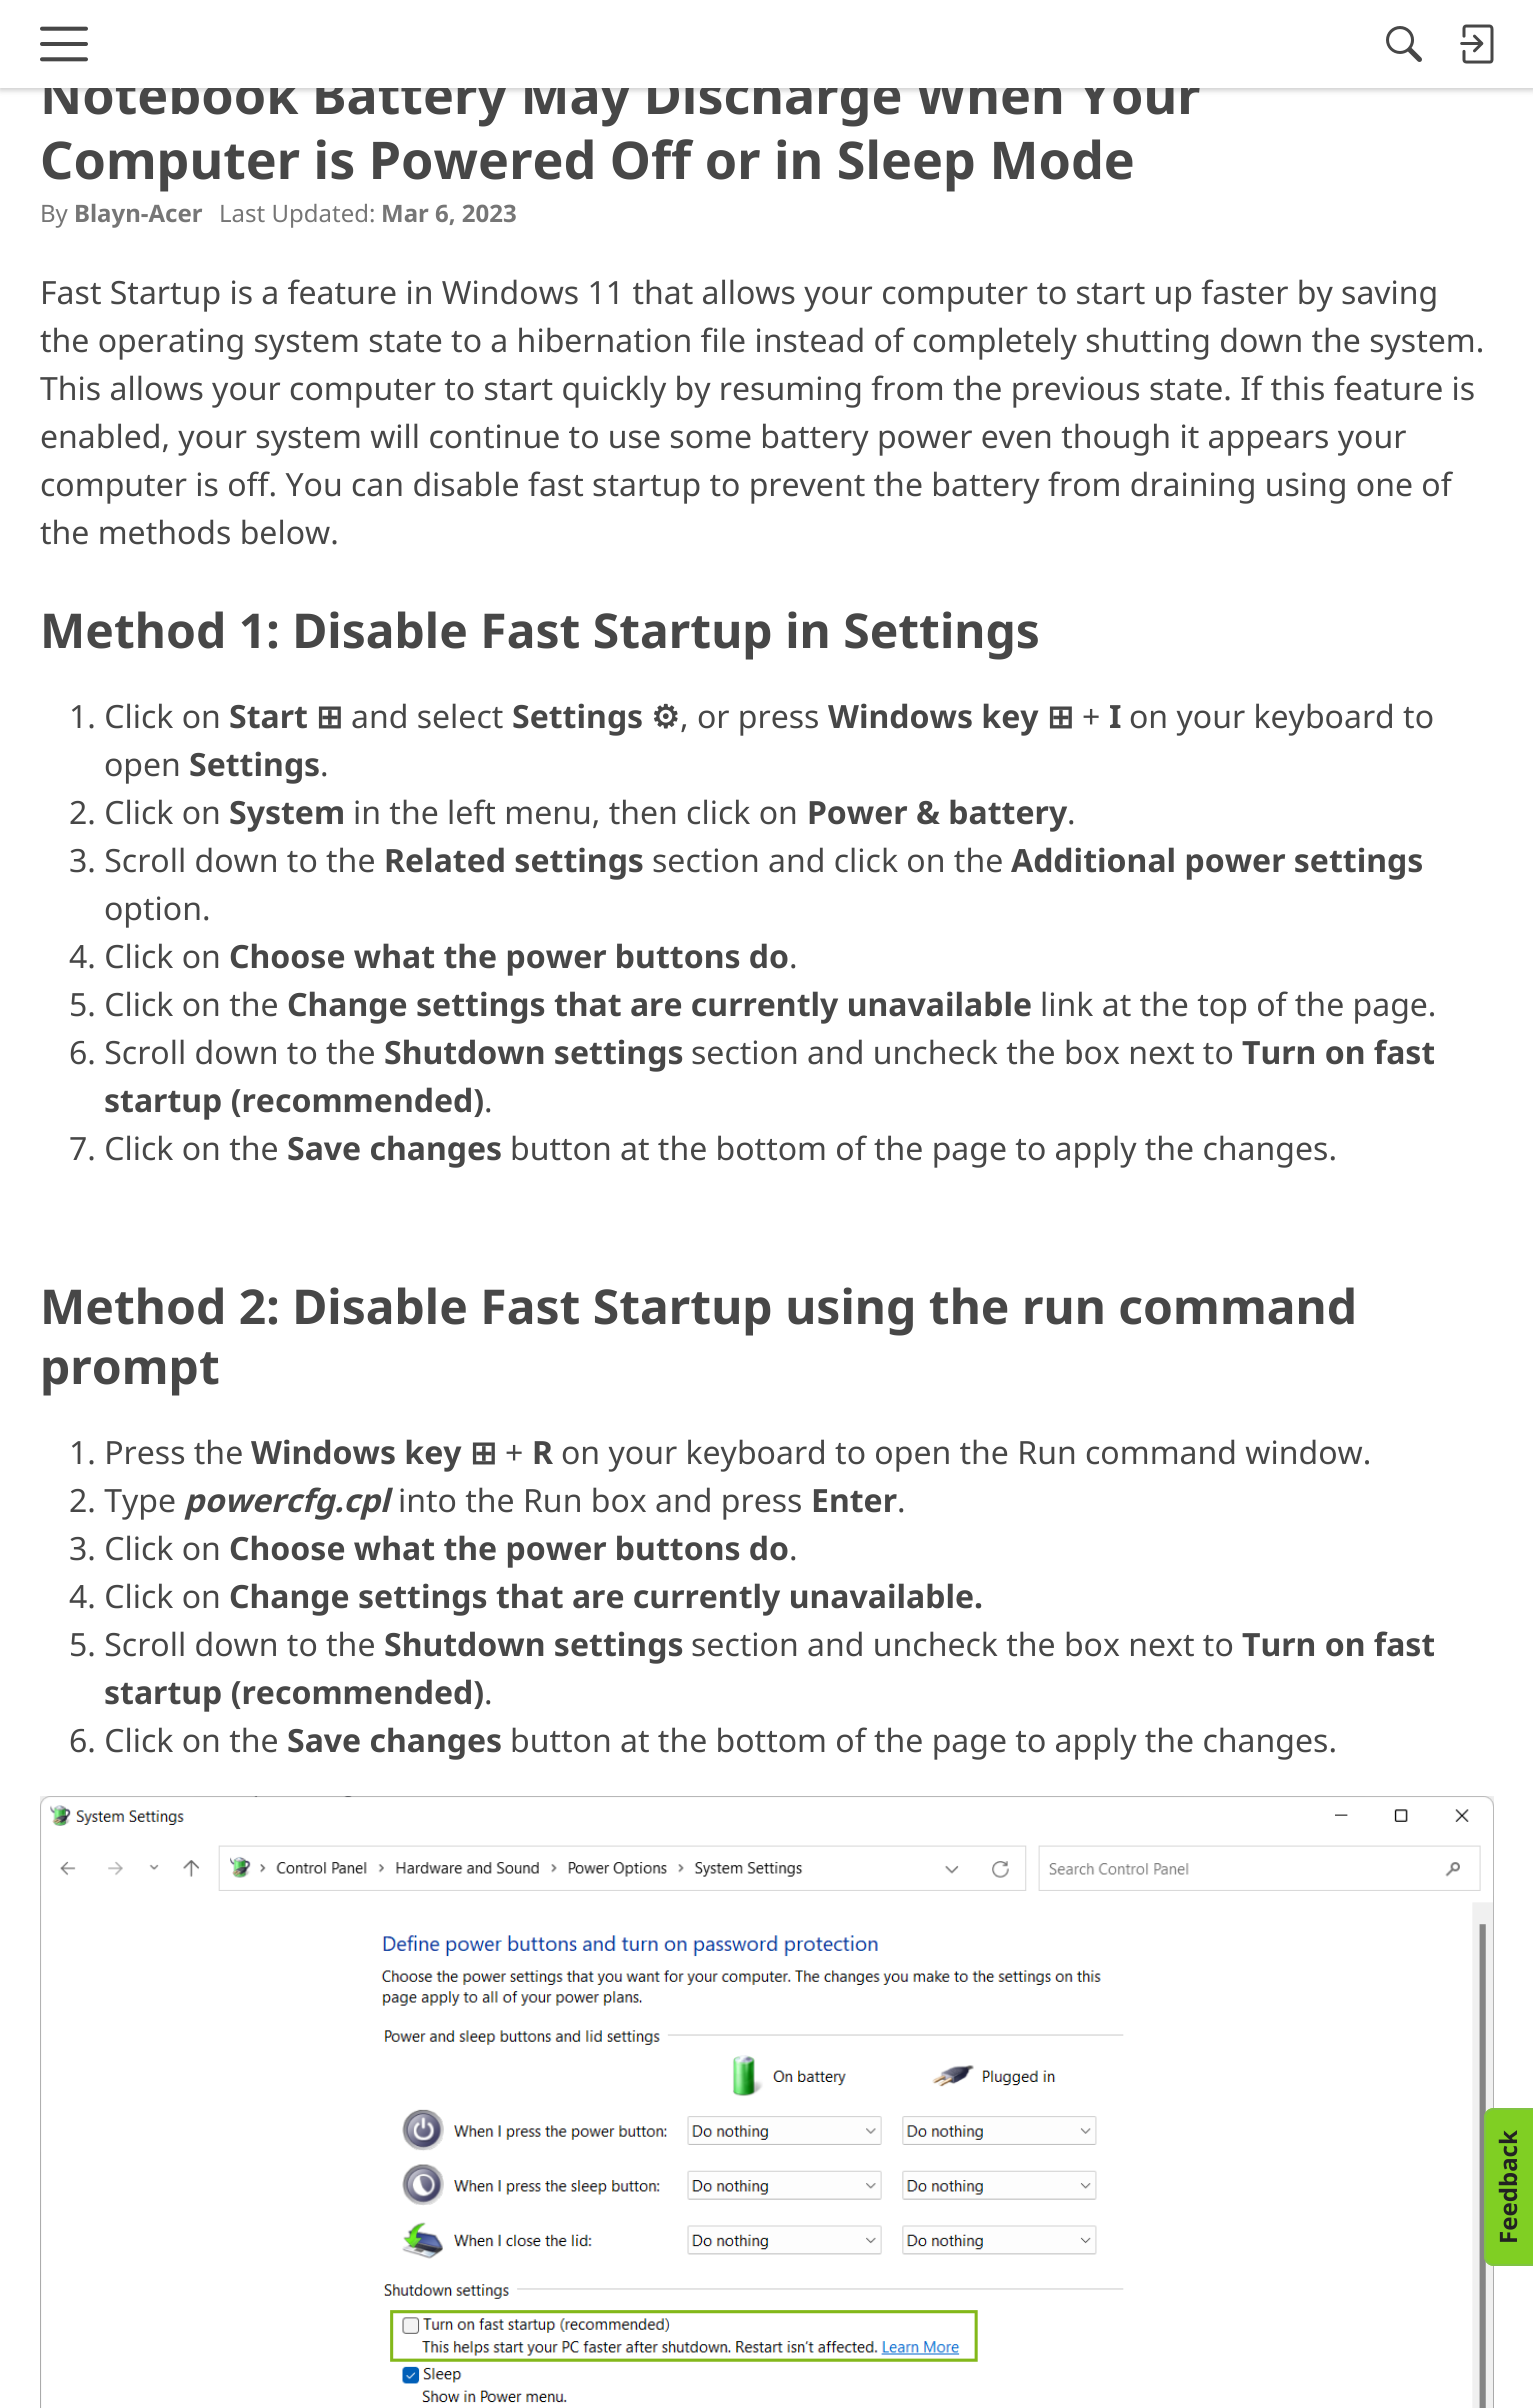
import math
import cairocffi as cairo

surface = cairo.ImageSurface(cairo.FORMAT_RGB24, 1533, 2408)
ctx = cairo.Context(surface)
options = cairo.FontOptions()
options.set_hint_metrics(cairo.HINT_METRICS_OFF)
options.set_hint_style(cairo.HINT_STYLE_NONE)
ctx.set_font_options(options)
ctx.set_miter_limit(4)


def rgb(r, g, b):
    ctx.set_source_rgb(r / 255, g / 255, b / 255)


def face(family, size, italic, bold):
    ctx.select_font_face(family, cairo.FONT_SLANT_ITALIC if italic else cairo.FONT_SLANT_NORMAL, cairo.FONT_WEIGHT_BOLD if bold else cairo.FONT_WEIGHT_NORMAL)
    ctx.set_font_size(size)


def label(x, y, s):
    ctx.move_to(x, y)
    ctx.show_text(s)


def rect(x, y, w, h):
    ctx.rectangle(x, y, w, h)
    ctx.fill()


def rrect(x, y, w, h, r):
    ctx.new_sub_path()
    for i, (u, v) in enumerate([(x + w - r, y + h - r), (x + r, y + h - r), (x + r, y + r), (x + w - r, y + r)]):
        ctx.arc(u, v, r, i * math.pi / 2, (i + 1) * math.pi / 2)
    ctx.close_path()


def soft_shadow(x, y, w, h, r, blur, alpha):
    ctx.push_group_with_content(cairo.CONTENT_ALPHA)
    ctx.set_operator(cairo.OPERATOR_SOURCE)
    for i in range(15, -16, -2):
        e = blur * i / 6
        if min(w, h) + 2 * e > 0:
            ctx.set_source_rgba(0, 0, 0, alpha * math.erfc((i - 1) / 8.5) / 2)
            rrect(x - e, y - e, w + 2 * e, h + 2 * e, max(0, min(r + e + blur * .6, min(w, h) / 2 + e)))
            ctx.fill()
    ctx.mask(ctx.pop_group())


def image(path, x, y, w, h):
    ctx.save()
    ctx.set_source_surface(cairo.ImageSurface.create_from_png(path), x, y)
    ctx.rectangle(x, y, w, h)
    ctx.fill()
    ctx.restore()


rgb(255, 255, 255)
ctx.paint()
rgb(0, 0, 0)
soft_shadow(0, 2, 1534, 88, 0, 3, 0.22)
face('Noto Sans', 52, 0, 1)
rgb(71, 71, 71)
label(40, 114, 'Notebook Battery May Discharge When Your')
rgb(255, 255, 255)
rect(0, 0, 1533, 88)
image('image0.png', 40, 26, 48, 36)
image('image1.png', 1386, 26, 36, 36)
image('image2.png', 1460, 24, 34, 40)
rgb(71, 71, 71)
label(40, 179, 'Computer is Powered Off or in Sleep Mode')
face('Noto Sans', 24, 0, 0)
rgb(118, 118, 118)
label(40, 222, 'By')
face('Noto Sans', 24, 0, 1)
label(74, 222, 'Blayn-Acer')
face('Noto Sans', 24, 0, 0)
label(219, 222, 'Last Updated:')
face('Noto Sans', 24, 0, 1)
label(381, 222, 'Mar 6, 2023')
face('Noto Sans', 32, 0, 0)
rgb(71, 71, 71)
label(40, 304, 'Fast Startup is a feature in Windows 11 that allows your computer to start up faster by saving')
label(40, 352, 'the operating system state to a hibernation file instead of completely shutting down the system.')
label(40, 400, 'This allows your computer to start quickly by resuming from the previous state. If this feature is')
label(40, 448, 'enabled, your system will continue to use some battery power even though it appears your')
label(40, 496, 'computer is off. You can disable fast startup to prevent the battery from draining using one of')
label(40, 544, 'the methods below.')
face('Noto Sans', 48, 0, 1)
label(40, 648, 'Method 1: Disable Fast Startup in Settings')
face('Noto Sans', 32, 0, 0)
label(69, 728, '1. Click on')
face('Noto Sans', 32, 0, 1)
label(229, 728, 'Start')
face('DejaVu Sans', 32, 0, 1)
label(316, 728, '⊞')
face('Noto Sans', 32, 0, 0)
label(351, 728, 'and select')
face('Noto Sans', 32, 0, 1)
label(512, 728, 'Settings')
face('DejaVu Sans', 32, 0, 1)
label(651, 728, '⚙')
face('Noto Sans', 32, 0, 0)
label(680, 728, ', or press')
face('Noto Sans', 32, 0, 1)
label(828, 728, 'Windows key')
face('DejaVu Sans', 32, 0, 1)
label(1047, 728, '⊞')
face('Noto Sans', 32, 0, 0)
label(1082, 728, '+')
face('Noto Sans', 32, 0, 1)
label(1109, 728, 'I')
face('Noto Sans', 32, 0, 0)
label(1129, 728, 'on your keyboard to')
label(104, 776, 'open')
face('Noto Sans', 32, 0, 1)
label(189, 776, 'Settings')
face('Noto Sans', 32, 0, 0)
label(320, 776, '.')
label(69, 824, '2. Click on')
face('Noto Sans', 32, 0, 1)
label(229, 824, 'System')
face('Noto Sans', 32, 0, 0)
label(353, 824, 'in the left menu, then click on')
face('Noto Sans', 32, 0, 1)
label(807, 824, 'Power & battery')
face('Noto Sans', 32, 0, 0)
label(1067, 824, '.')
label(69, 872, '3. Scroll down to the')
face('Noto Sans', 32, 0, 1)
label(384, 872, 'Related settings')
face('Noto Sans', 32, 0, 0)
label(652, 872, 'section and click on the')
face('Noto Sans', 32, 0, 1)
label(1011, 872, 'Additional power settings')
face('Noto Sans', 32, 0, 0)
label(104, 920, 'option.')
label(69, 968, '4. Click on')
face('Noto Sans', 32, 0, 1)
label(229, 968, 'Choose what the power buttons do')
face('Noto Sans', 32, 0, 0)
label(789, 968, '.')
label(69, 1016, '5. Click on the')
face('Noto Sans', 32, 0, 1)
label(287, 1016, 'Change settings that are currently unavailable')
face('Noto Sans', 32, 0, 0)
label(1040, 1016, 'link at the top of the page.')
label(69, 1064, '6. Scroll down to the')
face('Noto Sans', 32, 0, 1)
label(384, 1064, 'Shutdown settings')
face('Noto Sans', 32, 0, 0)
label(691, 1064, 'section and uncheck the box next to')
face('Noto Sans', 32, 0, 1)
label(1242, 1064, 'Turn on fast')
label(104, 1112, 'startup (recommended)')
face('Noto Sans', 32, 0, 0)
label(484, 1112, '.')
label(69, 1160, '7. Click on the')
face('Noto Sans', 32, 0, 1)
label(287, 1160, 'Save changes')
face('Noto Sans', 32, 0, 0)
label(510, 1160, 'button at the bottom of the page to apply the changes.')
face('Noto Sans', 48, 0, 1)
label(40, 1324, 'Method 2: Disable Fast Startup using the run command')
label(40, 1384, 'prompt')
face('Noto Sans', 32, 0, 0)
label(69, 1464, '1. Press the')
face('Noto Sans', 32, 0, 1)
label(251, 1464, 'Windows key')
face('DejaVu Sans', 32, 0, 1)
label(470, 1464, '⊞')
face('Noto Sans', 32, 0, 0)
label(505, 1464, '+')
face('Noto Sans', 32, 0, 1)
label(532, 1464, 'R')
face('Noto Sans', 32, 0, 0)
label(561, 1464, 'on your keyboard to open the Run command window.')
label(69, 1512, '2. Type')
face('Noto Sans', 32, 1, 1)
label(184, 1512, 'powercfg.cpl')
face('Noto Sans', 32, 0, 0)
label(398, 1512, 'into the Run box and press')
face('Noto Sans', 32, 0, 1)
label(811, 1512, 'Enter')
face('Noto Sans', 32, 0, 0)
label(897, 1512, '.')
label(69, 1560, '3. Click on')
face('Noto Sans', 32, 0, 1)
label(229, 1560, 'Choose what the power buttons do')
face('Noto Sans', 32, 0, 0)
label(789, 1560, '.')
label(69, 1608, '4. Click on')
face('Noto Sans', 32, 0, 1)
label(229, 1608, 'Change settings that are currently unavailable.')
face('Noto Sans', 32, 0, 0)
label(69, 1656, '5. Scroll down to the')
face('Noto Sans', 32, 0, 1)
label(384, 1656, 'Shutdown settings')
face('Noto Sans', 32, 0, 0)
label(691, 1656, 'section and uncheck the box next to')
face('Noto Sans', 32, 0, 1)
label(1242, 1656, 'Turn on fast')
label(104, 1704, 'startup (recommended)')
face('Noto Sans', 32, 0, 0)
label(484, 1704, '.')
label(69, 1752, '6. Click on the')
face('Noto Sans', 32, 0, 1)
label(287, 1752, 'Save changes')
face('Noto Sans', 32, 0, 0)
label(510, 1752, 'button at the bottom of the page to apply the changes.')
image('image3.png', 40, 1796, 1454, 612)
rgb(128, 207, 35)
ctx.new_path()
ctx.move_to(1484, 2256)
ctx.line_to(1484, 2118)
ctx.curve_to(1484, 2112, 1488, 2108, 1494, 2108)
ctx.line_to(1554, 2108)
ctx.line_to(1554, 2266)
ctx.line_to(1494, 2266)
ctx.curve_to(1488, 2266, 1484, 2261, 1484, 2256)
ctx.close_path()
ctx.fill()
ctx.new_path()
ctx.move_to(1485, 2256)
ctx.line_to(1485, 2118)
ctx.curve_to(1485, 2113, 1489, 2109, 1494, 2109)
ctx.line_to(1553, 2109)
ctx.line_to(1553, 2265)
ctx.line_to(1494, 2265)
ctx.curve_to(1489, 2265, 1485, 2261, 1485, 2256)
ctx.close_path()
rgb(128, 195, 67)
ctx.stroke()
face('Noto Sans', 24, 0, 1)
rgb(34, 34, 34)
ctx.save()
ctx.translate(1517, 2244)
ctx.rotate(-90 * math.pi / 180)
label(0, 0, 'Feedback')
ctx.restore()
surface.write_to_png('render.png')
